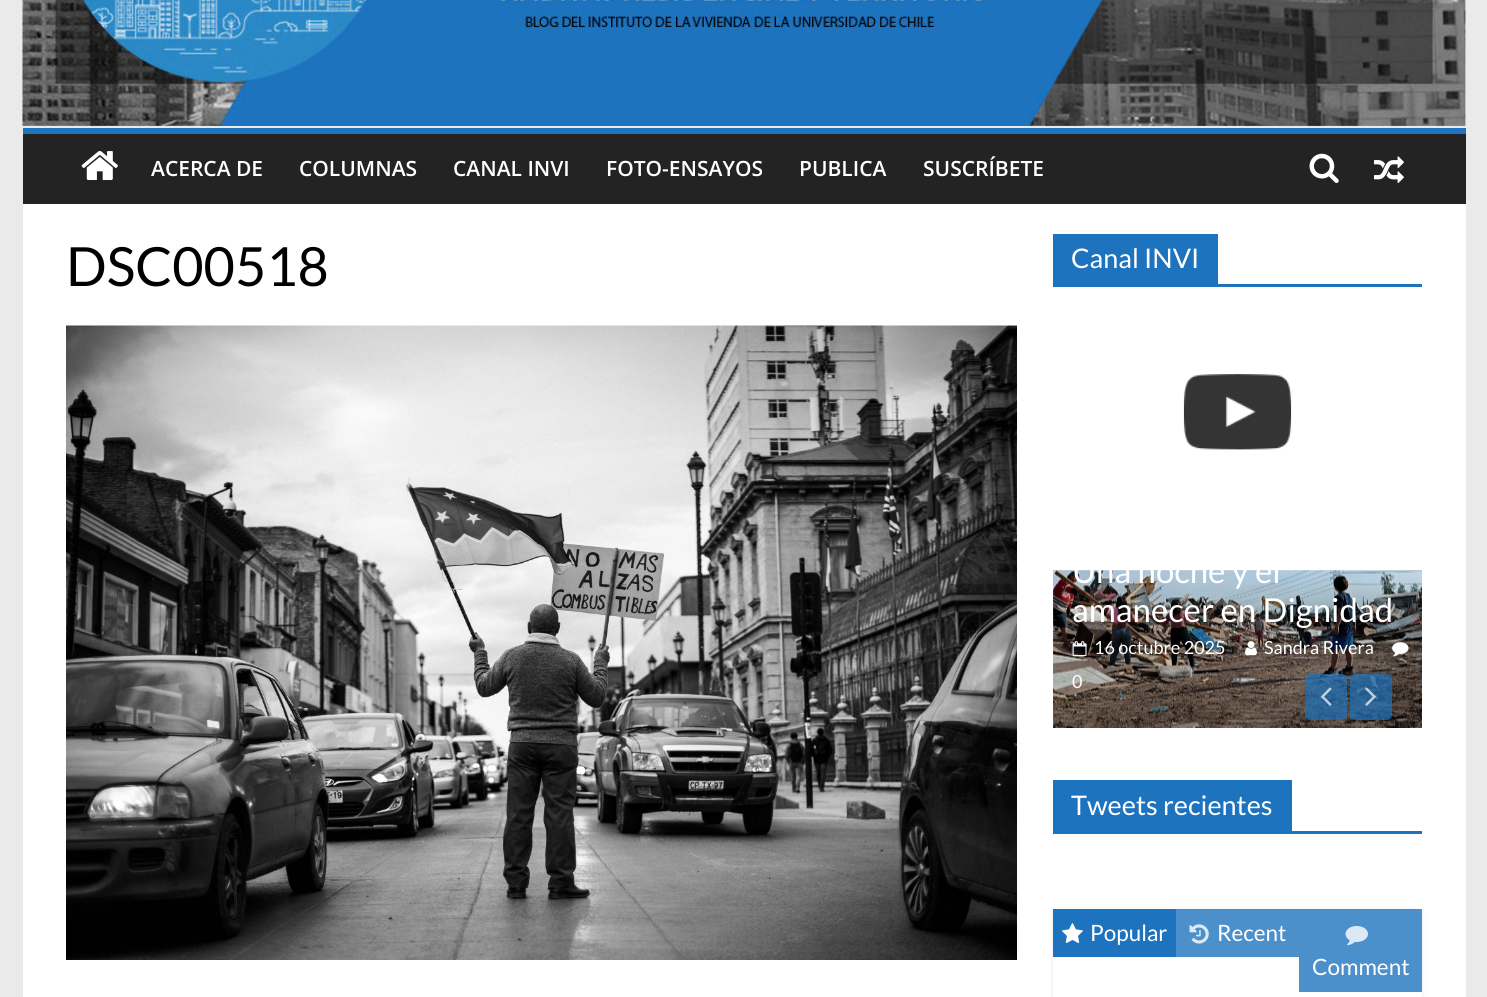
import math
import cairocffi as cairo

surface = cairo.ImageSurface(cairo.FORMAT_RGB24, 1487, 997)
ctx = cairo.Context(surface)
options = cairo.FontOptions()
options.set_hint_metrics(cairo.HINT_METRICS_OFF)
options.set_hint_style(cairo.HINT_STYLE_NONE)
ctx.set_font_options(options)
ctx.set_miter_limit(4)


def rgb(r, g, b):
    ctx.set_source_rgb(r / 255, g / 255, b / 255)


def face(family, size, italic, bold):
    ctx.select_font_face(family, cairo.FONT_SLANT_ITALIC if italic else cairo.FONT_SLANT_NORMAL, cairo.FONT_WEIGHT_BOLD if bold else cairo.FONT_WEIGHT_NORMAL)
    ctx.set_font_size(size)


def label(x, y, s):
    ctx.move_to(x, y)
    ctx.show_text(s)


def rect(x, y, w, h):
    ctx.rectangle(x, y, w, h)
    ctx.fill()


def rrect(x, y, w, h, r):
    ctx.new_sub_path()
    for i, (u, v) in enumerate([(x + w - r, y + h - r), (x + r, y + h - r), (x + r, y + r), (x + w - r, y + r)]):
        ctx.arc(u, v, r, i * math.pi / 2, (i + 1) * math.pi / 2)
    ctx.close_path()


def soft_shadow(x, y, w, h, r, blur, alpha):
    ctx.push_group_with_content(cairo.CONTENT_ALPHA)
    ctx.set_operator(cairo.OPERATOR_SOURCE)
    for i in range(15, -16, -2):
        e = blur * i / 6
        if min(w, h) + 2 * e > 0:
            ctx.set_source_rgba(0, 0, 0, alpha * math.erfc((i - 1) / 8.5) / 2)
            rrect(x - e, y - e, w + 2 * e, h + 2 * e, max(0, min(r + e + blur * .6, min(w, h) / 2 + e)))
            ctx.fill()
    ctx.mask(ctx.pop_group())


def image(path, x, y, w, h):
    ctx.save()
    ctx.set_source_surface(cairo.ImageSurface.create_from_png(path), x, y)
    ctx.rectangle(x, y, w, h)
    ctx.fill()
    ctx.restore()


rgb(234, 234, 234)
ctx.paint()
rgb(255, 255, 255)
rect(1465, 0, 1, 126)
image('image0.png', 22, 0, 1444, 126)
rgb(35, 35, 35)
rect(23, 134, 1443, 70)
rgb(30, 115, 190)
rect(23, 128, 1443, 6)
image('image1.png', 81, 151, 37, 29)
face('Open Sans SemiBold', 21, 0, 0)
rgb(255, 255, 255)
label(151, 176, 'ACERCA DE')
label(299, 176, 'COLUMNAS')
label(453, 176, 'CANAL INVI')
label(606, 176, 'FOTO-ENSAYOS')
label(799, 176, 'PUBLICA')
label(923, 176, 'SUSCRÍBETE')
image('image2.png', 1309, 153, 30, 30)
image('image3.png', 1374, 156, 30, 27)
rect(23, 204, 1443, 793)
face('Lato', 54, 0, 0)
rgb(0, 0, 0)
label(66, 286, 'DSC00518')
image('image4.png', 66, 325, 951, 635)
rgb(30, 115, 190)
rect(1053, 284, 369, 3)
rect(1053, 234, 165, 50)
face('Lato', 27, 0, 0)
rgb(255, 255, 255)
label(1071, 268, 'Canal INVI')
image('image5.png', 1183, 374, 109, 76)
image('image6.png', 1053, 570, 1, 158)
image('image7.png', 1053, 570, 369, 158)
gradient = cairo.LinearGradient(1238, 503, 1238, 728)
gradient.add_color_stop_rgba(0, 0, 0, 0, 0)
gradient.add_color_stop_rgba(1, 0, 0, 0, 0.3)
ctx.set_source(gradient)
rect(1053, 570, 369, 158)
ctx.save()
ctx.rectangle(1053, 570, 369, 158)
ctx.clip()
face('Lato', 33, 0, 0)
rgb(255, 255, 255)
label(1072, 583, 'Una noche y el')
ctx.restore()
face('Lato', 33, 0, 0)
rgb(255, 255, 255)
label(1072, 622, 'amanecer en Dignidad')
image('image8.png', 1072, 641, 15, 16)
face('Lato', 18, 0, 0)
label(1094, 654, '16 octubre 2025')
image('image9.png', 1245, 641, 12, 15)
label(1264, 654, 'Sandra Rivera')
image('image10.png', 1392, 642, 17, 15)
label(1072, 688, '0')
ctx.set_source_rgba(0.118, 0.451, 0.745, 0.7)
rrect(1305, 674, 42, 46, 5)
ctx.fill()
image('image11.png', 1320, 687, 12, 19)
rrect(1350, 674, 42, 46, 5)
ctx.fill()
image('image12.png', 1365, 687, 11, 19)
rgb(30, 115, 190)
rect(1053, 831, 369, 3)
rect(1053, 780, 239, 51)
face('Lato', 27, 0, 0)
rgb(255, 255, 255)
label(1071, 815, 'Tweets recientes')
ctx.save()
ctx.set_fill_rule(cairo.FILL_RULE_EVEN_ODD)
ctx.new_path()
ctx.move_to(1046, 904)
ctx.line_to(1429, 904)
ctx.line_to(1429, 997)
ctx.line_to(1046, 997)
ctx.close_path()
ctx.move_to(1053, 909)
ctx.line_to(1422, 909)
ctx.line_to(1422, 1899)
ctx.line_to(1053, 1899)
ctx.close_path()
ctx.clip()
rgb(0, 0, 0)
soft_shadow(1053, 911, 369, 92, 0, 2, 0.1)
ctx.restore()
rgb(30, 115, 190)
rect(1053, 909, 123, 48)
image('image13.png', 1062, 923, 21, 20)
face('Lato', 22.5, 0, 0)
rgb(255, 255, 255)
label(1090, 941, 'Popular')
rgb(75, 143, 203)
rect(1176, 909, 123, 48)
image('image14.png', 1189, 924, 20, 20)
rgb(255, 255, 255)
label(1217, 941, 'Recent')
rgb(75, 143, 203)
rect(1299, 909, 123, 83)
image('image15.png', 1345, 925, 23, 21)
rgb(255, 255, 255)
label(1312, 975, 'Comment')
surface.write_to_png('render.png')
